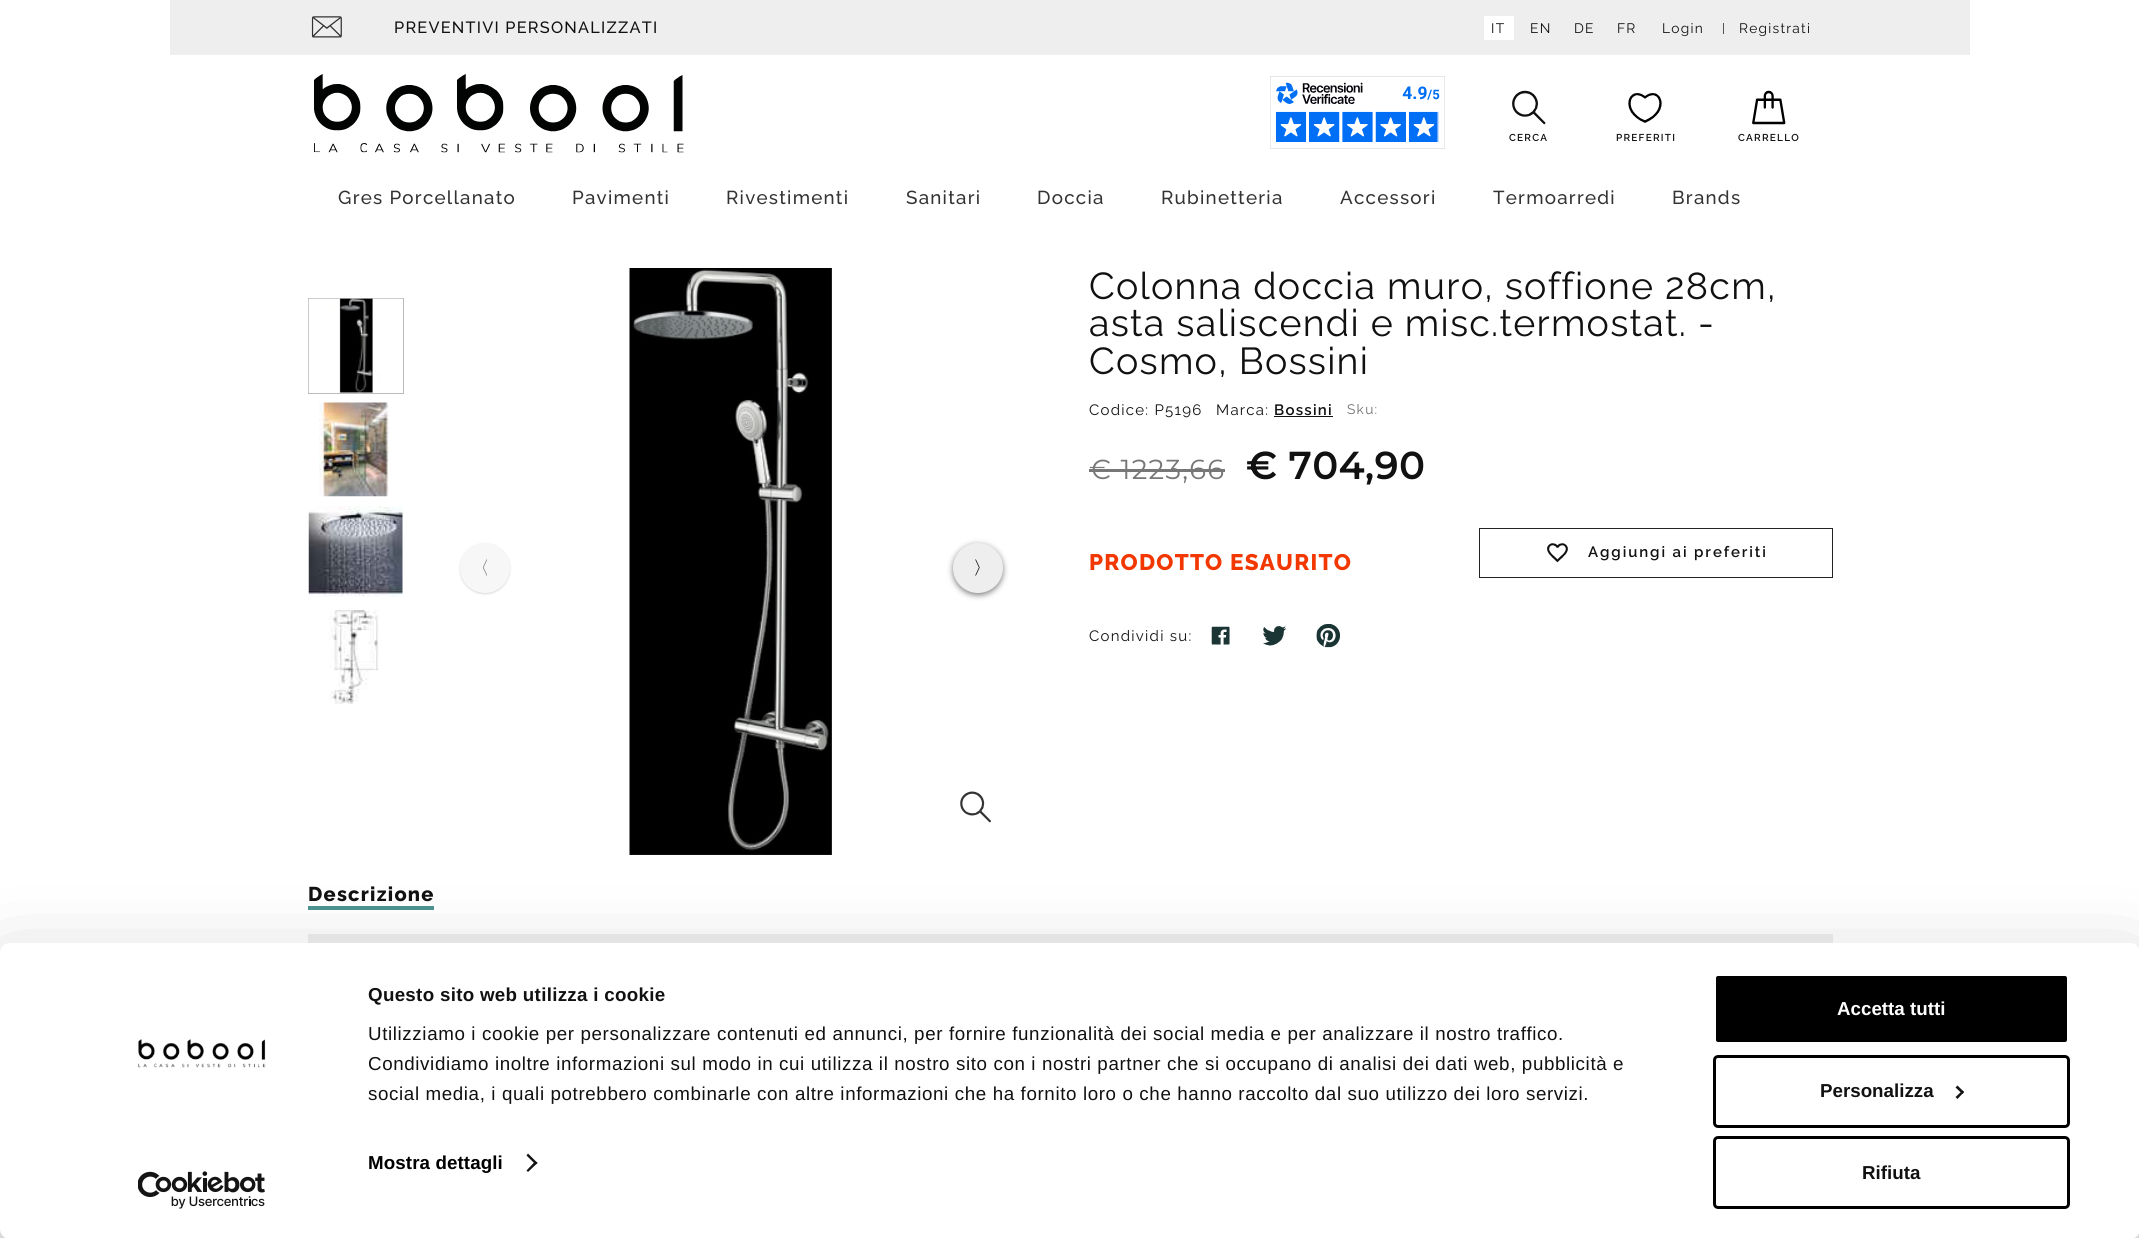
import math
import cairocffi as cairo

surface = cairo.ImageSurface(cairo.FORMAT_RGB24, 2139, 1238)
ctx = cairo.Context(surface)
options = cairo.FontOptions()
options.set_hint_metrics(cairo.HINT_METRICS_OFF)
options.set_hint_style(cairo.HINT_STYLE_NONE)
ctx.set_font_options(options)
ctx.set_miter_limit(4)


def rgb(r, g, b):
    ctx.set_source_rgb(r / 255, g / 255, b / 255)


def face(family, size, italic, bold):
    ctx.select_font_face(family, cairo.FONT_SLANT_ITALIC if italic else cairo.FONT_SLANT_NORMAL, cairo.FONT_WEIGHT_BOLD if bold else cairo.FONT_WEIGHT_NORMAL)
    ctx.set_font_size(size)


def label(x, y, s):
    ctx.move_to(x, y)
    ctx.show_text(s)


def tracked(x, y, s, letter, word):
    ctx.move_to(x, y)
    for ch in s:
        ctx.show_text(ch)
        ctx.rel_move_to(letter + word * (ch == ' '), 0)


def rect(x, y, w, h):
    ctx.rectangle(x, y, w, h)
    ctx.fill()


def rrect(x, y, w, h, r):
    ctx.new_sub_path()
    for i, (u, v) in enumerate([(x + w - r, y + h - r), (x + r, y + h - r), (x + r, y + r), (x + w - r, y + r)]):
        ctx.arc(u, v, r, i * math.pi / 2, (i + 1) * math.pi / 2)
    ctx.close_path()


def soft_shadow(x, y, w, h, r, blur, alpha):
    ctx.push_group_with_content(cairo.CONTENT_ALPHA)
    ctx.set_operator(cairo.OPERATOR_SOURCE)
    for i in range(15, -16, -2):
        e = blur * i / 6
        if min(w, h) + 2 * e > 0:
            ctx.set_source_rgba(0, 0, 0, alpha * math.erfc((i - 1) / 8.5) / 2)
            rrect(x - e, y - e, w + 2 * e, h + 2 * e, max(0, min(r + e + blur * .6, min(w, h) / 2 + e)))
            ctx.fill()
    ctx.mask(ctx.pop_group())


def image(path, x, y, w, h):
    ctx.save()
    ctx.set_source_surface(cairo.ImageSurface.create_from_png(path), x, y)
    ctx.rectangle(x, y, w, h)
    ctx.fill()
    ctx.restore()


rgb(255, 255, 255)
ctx.paint()
rgb(238, 238, 238)
rect(170, 0, 125, 55)
rect(295, 0, 1675, 55)
image('image0.png', 311, 16, 31, 22)
face('Raleway Medium', 16.25, 0, 0)
rgb(17, 17, 17)
tracked(394, 33, 'PREVENTIVI PERSONALIZZATI', 1.25, 0)
rgb(255, 255, 255)
rect(1484, 16, 30, 24)
face('Raleway', 13.75, 0, 0)
rgb(17, 17, 17)
tracked(1491, 33, 'IT', 1.25, 0)
tracked(1530, 33, 'EN', 1.25, 0)
tracked(1574, 33, 'DE', 1.25, 0)
tracked(1617, 33, 'FR', 1.25, 0)
tracked(1662, 33, 'Login', 1.25, 0)
rgb(85, 85, 85)
rect(1723, 23, 1, 11)
rgb(17, 17, 17)
tracked(1739, 33, 'Registrati', 1.25, 0)
image('image1.png', 314, 74, 370, 79)
image('image2.png', 1270, 76, 175, 73)
image('image3.png', 1512, 90, 34, 35)
face('Raleway SemiBold', 10, 0, 0)
tracked(1509, 141, 'CERCA', 1.25, 0)
image('image4.png', 1628, 93, 34, 30)
tracked(1616, 141, 'PREFERITI', 1.25, 0)
image('image5.png', 1752, 90, 34, 35)
tracked(1738, 141, 'CARRELLO', 1.25, 0)
face('Raleway Medium', 18.75, 0, 0)
rgb(51, 51, 51)
tracked(338, 204, 'Gres Porcellanato', 1.25, 0)
tracked(572, 204, 'Pavimenti', 1.25, 0)
tracked(726, 204, 'Rivestimenti', 1.25, 0)
tracked(906, 204, 'Sanitari', 1.25, 0)
tracked(1037, 204, 'Doccia', 1.25, 0)
tracked(1161, 204, 'Rubinetteria', 1.25, 0)
tracked(1340, 204, 'Accessori', 1.25, 0)
tracked(1493, 204, 'Termoarredi', 1.25, 0)
tracked(1672, 204, 'Brands', 1.25, 0)
ctx.rectangle(308.5, 298.5, 95, 95)
rgb(187, 187, 187)
ctx.set_line_width(1)
ctx.stroke()
image('image6.png', 308, 298, 95, 95)
image('image7.png', 319, 402, 70, 95)
image('image8.png', 308, 506, 95, 91)
image('image9.png', 329, 610, 50, 94)
image('image10.png', 629, 268, 203, 587)
rgb(128, 128, 128)
soft_shadow(460, 544, 50, 50, 25, 1, 0.3)
rgb(247, 247, 247)
ctx.arc(485, 568, 25, 0, 2 * math.pi)
ctx.fill()
image('image11.png', 483, 559, 4, 17)
rgb(0, 0, 0)
soft_shadow(953, 545, 50, 50, 25, 3, 0.5)
rgb(238, 238, 238)
ctx.arc(978, 568, 25, 0, 2 * math.pi)
ctx.fill()
image('image12.png', 975, 559, 5, 17)
image('image13.png', 960, 791, 31, 32)
face('Raleway', 37.5, 0, 0)
rgb(17, 17, 17)
tracked(1089, 299, 'Colonna doccia muro, soffione 28cm,', 1.25, 0)
tracked(1089, 336, 'asta saliscendi e misc.termostat. -', 1.25, 0)
tracked(1089, 374, 'Cosmo, Bossini', 1.25, 0)
face('Raleway', 15, 0, 0)
tracked(1089, 415, 'Codice: P5196', 1.25, 0)
tracked(1216, 415, 'Marca:', 1.25, 0)
face('Raleway SemiBold', 15, 0, 0)
tracked(1274, 415, 'Bossini', 1.25, 0)
rect(1274, 416, 59, 1)
face('Raleway', 13.75, 0, 0)
rgb(112, 112, 112)
tracked(1347, 414, 'Sku:', 1.25, 0)
face('Montserrat', 27.5, 0, 0)
rgb(119, 119, 119)
tracked(1089, 479, '€ 1223,66', 1.25, 0)
rect(1089, 469, 136, 3)
face('Montserrat', 37.5, 0, 1)
rgb(17, 17, 17)
tracked(1246, 479, '€ 704,90', 1.25, 0)
face('Raleway ExtraBold', 22.5, 0, 0)
rgb(242, 55, 0)
tracked(1089, 570, 'PRODOTTO ESAURITO', 1.25, 0)
ctx.rectangle(1479.5, 528.5, 353, 49)
rgb(34, 34, 34)
ctx.stroke()
image('image14.png', 1547, 543, 21, 20)
face('Raleway SemiBold', 15, 0, 0)
rgb(17, 17, 17)
tracked(1588, 557, 'Aggiungi ai preferiti', 1.9, 0)
face('Raleway', 15, 0, 0)
tracked(1089, 641, 'Condividi su:', 1.25, 0)
image('image15.png', 1211, 626, 19, 19)
image('image16.png', 1263, 626, 23, 20)
image('image17.png', 1316, 624, 24, 24)
face('Raleway ExtraBold', 20, 0, 0)
tracked(308, 901, 'Descrizione', 1.25, 0)
rgb(76, 147, 146)
rect(308, 906, 126, 4)
rgb(238, 238, 238)
rect(308, 934, 1525, 9)
rgb(0, 0, 0)
soft_shadow(0, 980, 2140, 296, 10, 44, 0.3)
rgb(255, 255, 255)
rrect(0, 943, 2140, 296, 10)
ctx.fill()
image('image18.png', 138, 1039, 128, 29)
image('image19.png', 138, 1171, 127, 38)
face('Liberation Sans', 18.75, 0, 1)
rgb(17, 17, 17)
tracked(368, 1001, 'Questo sito web utilizza i cookie', 0.3, 0)
face('Liberation Sans', 18.75, 0, 0)
tracked(368, 1040, 'Utilizziamo i cookie per personalizzare contenuti ed annunci, per fornire funzionalità dei social media e per analizzare il nostro traffico.', 0.62, 0)
tracked(368, 1070, 'Condividiamo inoltre informazioni sul modo in cui utilizza il nostro sito con i nostri partner che si occupano di analisi dei dati web, pubblicità e', 0.62, 0)
tracked(368, 1100, 'social media, i quali potrebbero combinarle con altre informazioni che ha fornito loro o che hanno raccolto dal suo utilizzo dei loro servizi.', 0.62, 0)
face('Liberation Sans', 18.75, 0, 1)
rgb(0, 0, 0)
tracked(368, 1169, 'Mostra dettagli', 0.1, 0)
rgb(20, 20, 20)
ctx.new_path()
ctx.move_to(528, 1153.5)
ctx.line_to(537.5, 1163)
ctx.line_to(535.5, 1164.5)
ctx.line_to(526.5, 1155.5)
ctx.close_path()
ctx.fill()
ctx.new_path()
ctx.move_to(535.5, 1161)
ctx.line_to(537.5, 1163)
ctx.line_to(528, 1172)
ctx.line_to(526.5, 1170.5)
ctx.close_path()
ctx.fill()
rgb(0, 0, 0)
rrect(1714.5, 974.5, 354, 69, 3.5)
ctx.fill_preserve()
rgb(255, 255, 255)
ctx.set_line_width(3)
ctx.stroke()
label(1837, 1015, 'Accetta tutti')
rrect(1714.5, 1056.5, 354, 70, 3.5)
rgb(0, 0, 0)
ctx.stroke()
rgb(17, 17, 17)
label(1820, 1097, 'Personalizza')
rgb(20, 20, 20)
ctx.new_path()
ctx.move_to(1957.5, 1085.5)
ctx.line_to(1964, 1092)
ctx.line_to(1962.5, 1094)
ctx.line_to(1955.5, 1087.5)
ctx.close_path()
ctx.fill()
ctx.new_path()
ctx.move_to(1962.5, 1090.5)
ctx.line_to(1964, 1092)
ctx.line_to(1957.5, 1099)
ctx.line_to(1955.5, 1097)
ctx.close_path()
ctx.fill()
rrect(1714.5, 1137.5, 354, 70, 3.5)
rgb(0, 0, 0)
ctx.stroke()
rgb(17, 17, 17)
label(1862, 1179, 'Rifiuta')
surface.write_to_png('render.png')
